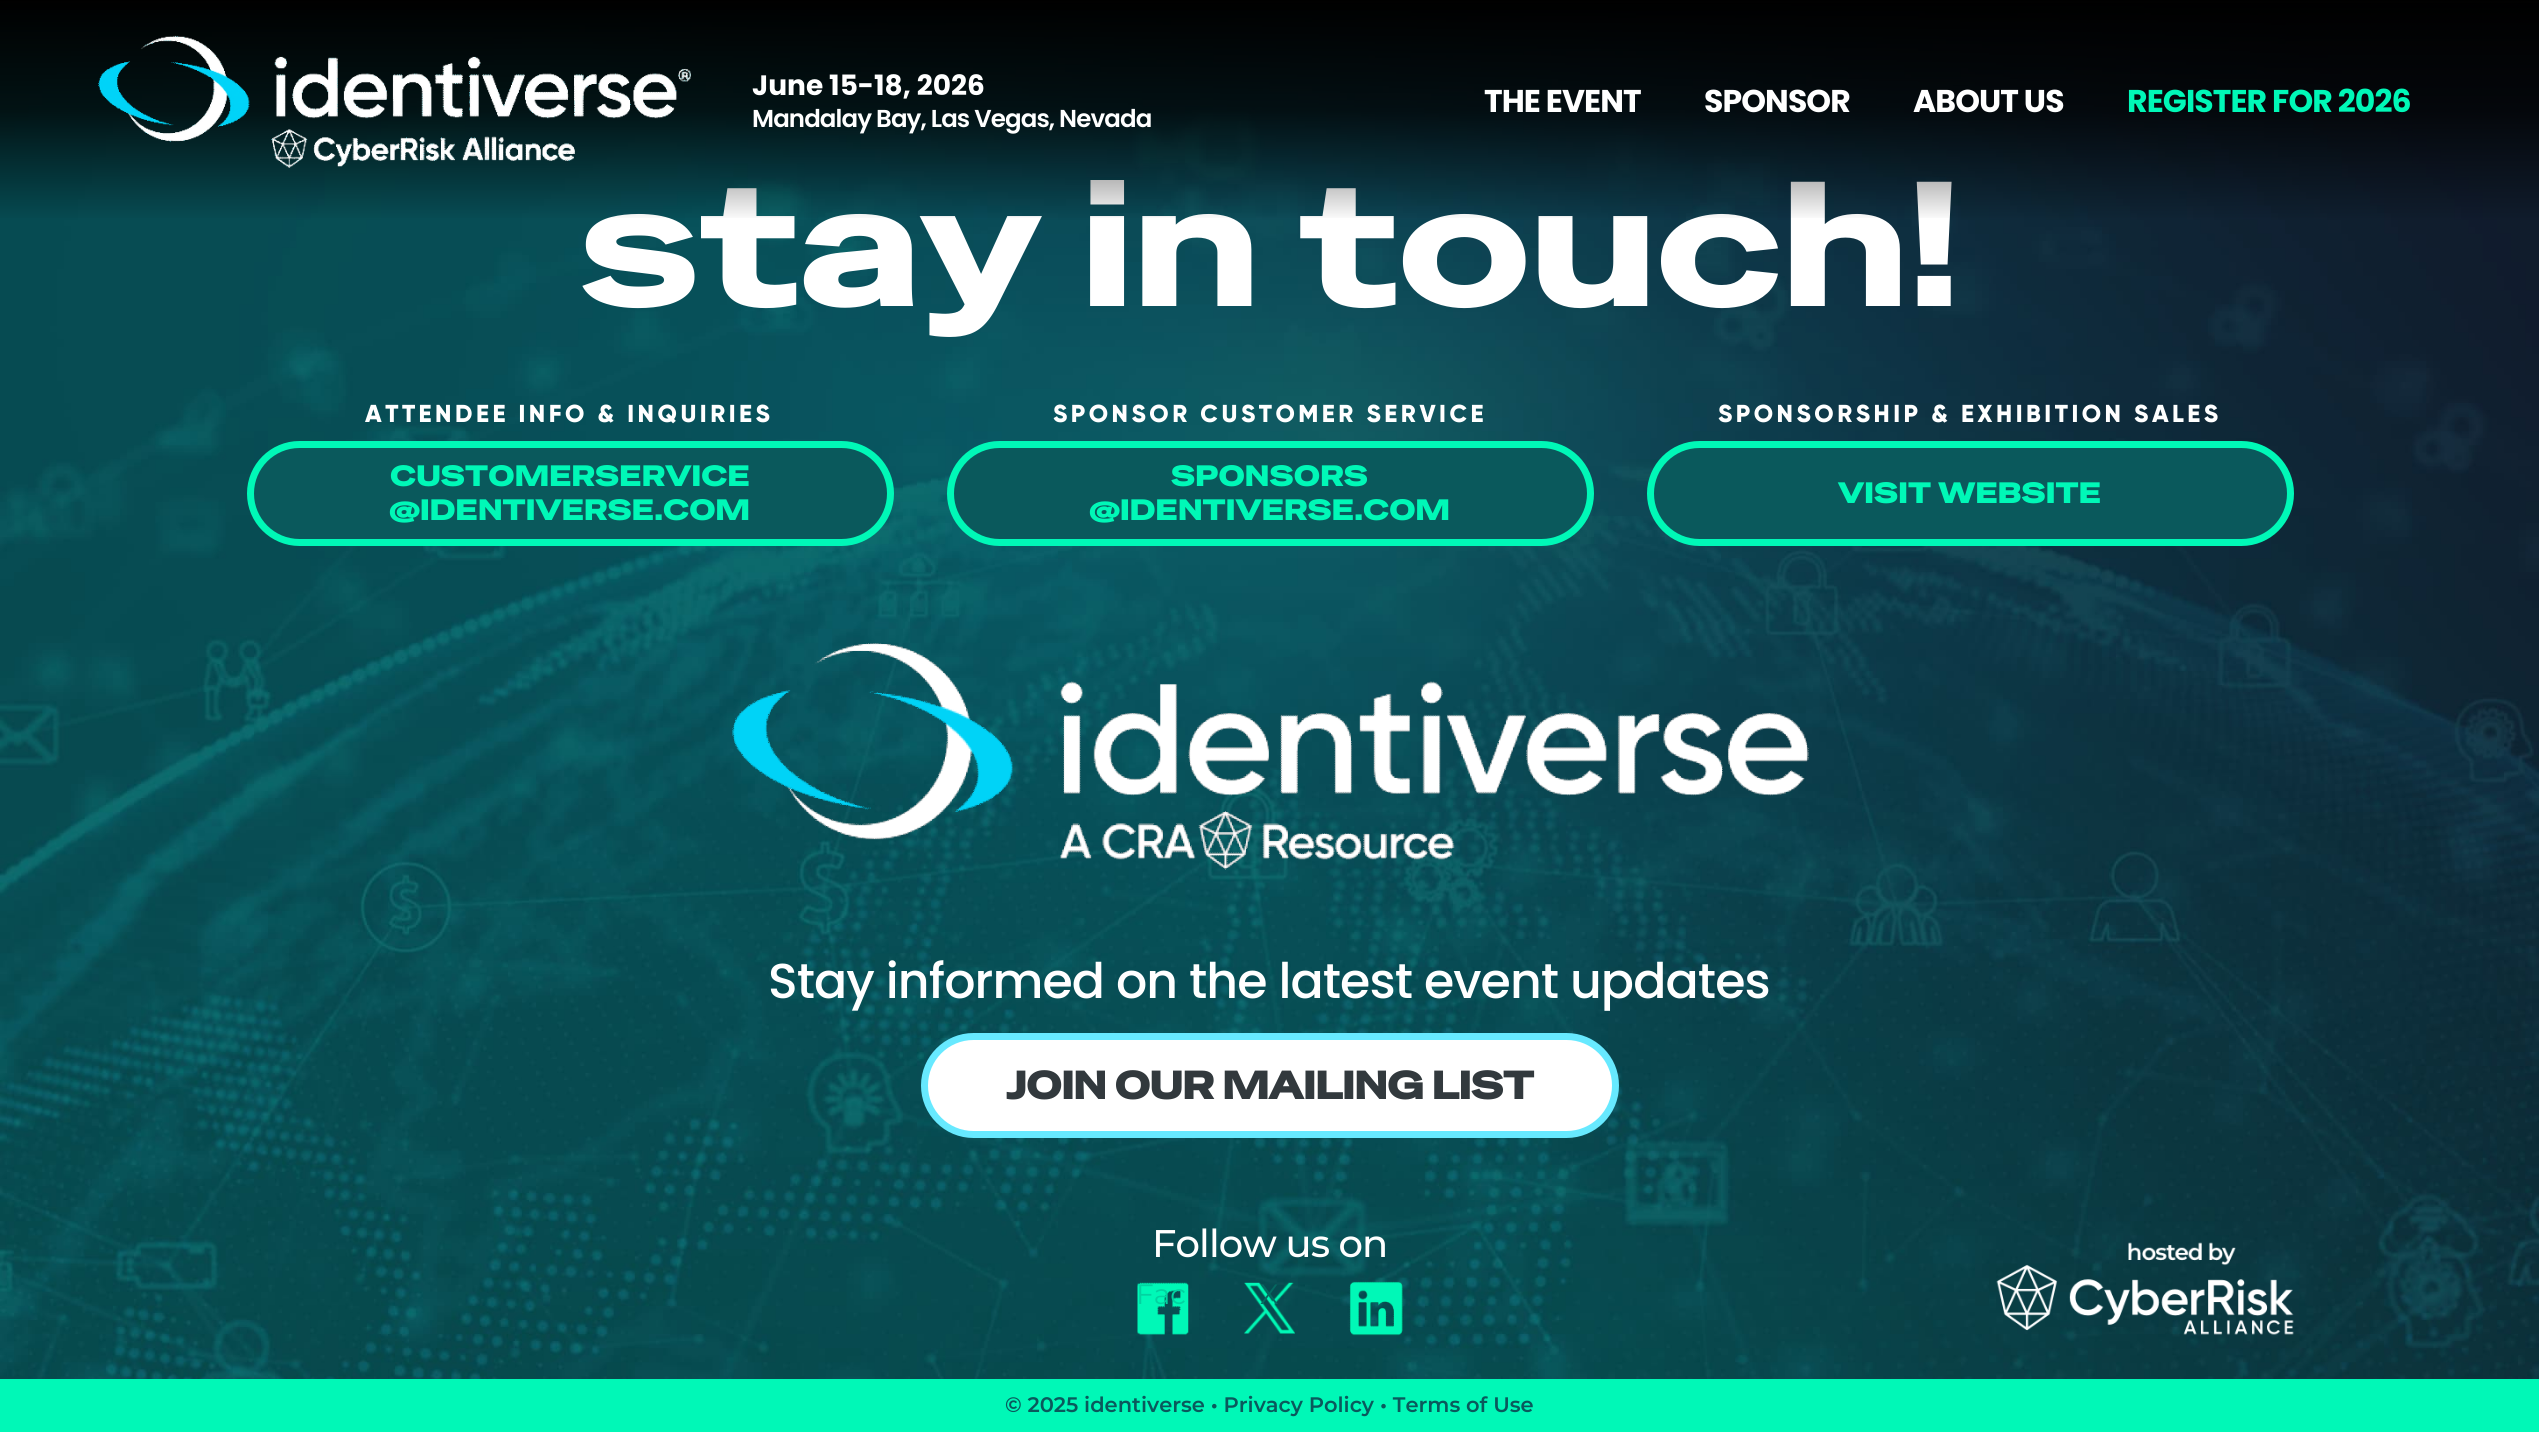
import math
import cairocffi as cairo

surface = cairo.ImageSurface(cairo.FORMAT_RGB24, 2539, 1444)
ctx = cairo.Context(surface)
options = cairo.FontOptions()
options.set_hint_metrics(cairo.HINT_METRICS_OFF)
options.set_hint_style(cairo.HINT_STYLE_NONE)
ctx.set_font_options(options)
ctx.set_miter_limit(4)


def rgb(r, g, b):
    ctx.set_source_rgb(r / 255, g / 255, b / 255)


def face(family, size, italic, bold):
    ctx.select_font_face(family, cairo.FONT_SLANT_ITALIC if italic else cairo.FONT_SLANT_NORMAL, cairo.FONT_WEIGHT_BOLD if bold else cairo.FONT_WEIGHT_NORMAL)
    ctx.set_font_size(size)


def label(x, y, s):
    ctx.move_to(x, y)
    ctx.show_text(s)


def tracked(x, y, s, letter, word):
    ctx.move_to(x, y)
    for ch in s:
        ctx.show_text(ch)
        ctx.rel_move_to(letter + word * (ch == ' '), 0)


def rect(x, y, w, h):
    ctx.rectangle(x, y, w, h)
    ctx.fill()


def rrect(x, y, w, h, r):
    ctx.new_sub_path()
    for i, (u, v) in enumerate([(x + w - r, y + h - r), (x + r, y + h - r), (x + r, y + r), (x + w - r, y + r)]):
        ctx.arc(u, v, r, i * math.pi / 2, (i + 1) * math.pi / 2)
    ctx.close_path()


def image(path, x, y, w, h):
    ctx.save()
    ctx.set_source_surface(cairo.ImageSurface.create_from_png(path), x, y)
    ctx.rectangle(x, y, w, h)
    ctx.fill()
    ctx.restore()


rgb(255, 255, 255)
ctx.paint()
image('image1.png', 0, 3, 2539, 1376)
face('Special Gothic Expanded One', 175, 0, 0)
rgb(255, 255, 255)
label(579, 306, 'stay in touch!')
gradient = cairo.LinearGradient(1270, 221, 1270, 0)
gradient.add_color_stop_rgba(0, 0, 0, 0, 0)
gradient.add_color_stop_rgba(0.5, 0, 0, 0, 0.75)
gradient.add_color_stop_rgba(1, 0, 0, 0, 1)
ctx.set_source(gradient)
rect(0, 0, 2539, 218)
image('image0.png', 98, 35, 593, 133)
face('Poppins', 28, 0, 1)
rgb(255, 255, 255)
label(752, 95, 'June 15-18, 2026')
face('Poppins SemiBold', 24.5, 0, 0)
tracked(752, 127, 'Mandalay Bay, Las Vegas, Nevada', -0.9, 0)
face('Poppins', 31.5, 0, 1)
tracked(1484, 112, 'THE EVENT', -0.9, 0)
tracked(1704, 112, 'SPONSOR', -0.9, 0)
tracked(1913, 112, 'ABOUT US', -0.9, 0)
rgb(0, 248, 183)
tracked(2127, 112, 'REGISTER FOR 2026', -0.9, 0)
face('Gilroy ExtraBold', 24.5, 0, 0)
rgb(255, 255, 255)
tracked(365, 422, 'ATTENDEE INFO & INQUIRIES', 3.5, 0)
rgb(10, 89, 92)
rrect(250.5, 444.5, 640, 98, 49)
ctx.fill_preserve()
rgb(0, 248, 183)
ctx.set_line_width(7)
ctx.stroke()
face('Special Gothic Expanded One', 28, 0, 1)
tracked(390, 486, 'CUSTOMERSERVICE', 0.9, 0)
tracked(389, 520, '@IDENTIVERSE.COM', 0.9, 0)
face('Gilroy ExtraBold', 24.5, 0, 0)
rgb(255, 255, 255)
tracked(1053, 422, 'SPONSOR CUSTOMER SERVICE', 3.5, 0)
rgb(10, 89, 92)
rrect(950.5, 444.5, 640, 98, 49)
ctx.fill_preserve()
rgb(0, 248, 183)
ctx.stroke()
face('Special Gothic Expanded One', 28, 0, 1)
tracked(1171, 486, 'SPONSORS', 0.9, 0)
tracked(1089, 520, '@IDENTIVERSE.COM', 0.9, 0)
face('Gilroy ExtraBold', 24.5, 0, 0)
rgb(255, 255, 255)
tracked(1718, 422, 'SPONSORSHIP & EXHIBITION SALES', 3.5, 0)
rgb(10, 89, 92)
rrect(1650.5, 444.5, 640, 98, 49)
ctx.fill_preserve()
rgb(0, 248, 183)
ctx.stroke()
face('Special Gothic Expanded One', 28, 0, 1)
tracked(1838, 503, 'VISIT WEBSITE', 0.9, 0)
image('image2.png', 732, 643, 1077, 227)
face('Poppins Medium', 49, 0, 0)
rgb(255, 255, 255)
tracked(768, 998, 'Stay informed on the latest event updates', -0.9, 0)
rrect(924.5, 1036.5, 691, 98, 49)
ctx.fill_preserve()
rgb(103, 233, 255)
ctx.stroke()
face('Special Gothic Expanded One', 38.5, 0, 1)
rgb(50, 57, 61)
label(1006, 1099, 'JOIN OUR MAILING LIST')
face('Montserrat Medium', 38.5, 0, 0)
rgb(255, 255, 255)
tracked(1152, 1257, 'Follow us on', -0.9, 0)
image('image3.png', 1996, 1242, 298, 93)
image('image4.png', 1137, 1282, 52, 53)
face('Montserrat', 28, 0, 0)
rgb(2, 211, 161)
label(1136, 1304, 'Fac')
image('image5.png', 1244, 1282, 51, 52)
rgb(5, 105, 97)
label(1260, 1304, 'X')
image('image6.png', 1349, 1281, 54, 55)
rgb(0, 248, 183)
rect(0, 1379, 2539, 53)
face('Montserrat SemiBold', 21, 0, 0)
rgb(10, 89, 92)
label(1005, 1412, '© 2025 identiverse • Privacy Policy')
label(1380, 1412, '• Terms of Use')
surface.write_to_png('render.png')
